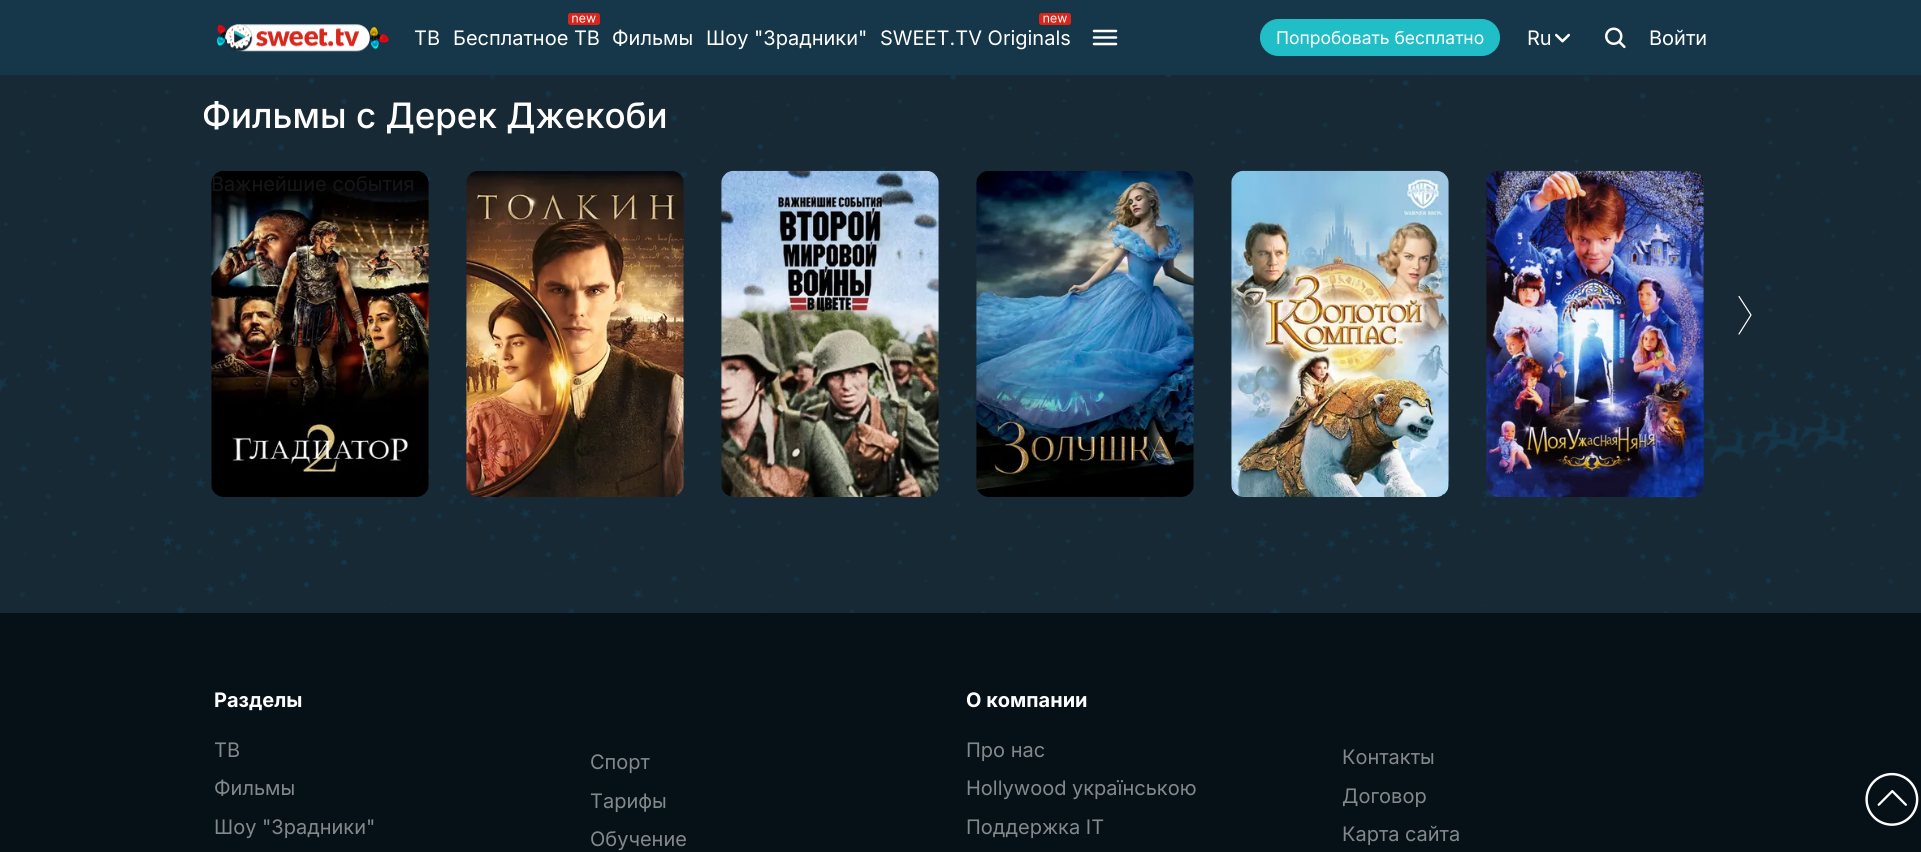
import math
import cairocffi as cairo

surface = cairo.ImageSurface(cairo.FORMAT_RGB24, 1921, 852)
ctx = cairo.Context(surface)
options = cairo.FontOptions()
options.set_hint_metrics(cairo.HINT_METRICS_OFF)
options.set_hint_style(cairo.HINT_STYLE_NONE)
ctx.set_font_options(options)
ctx.set_miter_limit(4)


def rgb(r, g, b):
    ctx.set_source_rgb(r / 255, g / 255, b / 255)


def face(family, size, italic, bold):
    ctx.select_font_face(family, cairo.FONT_SLANT_ITALIC if italic else cairo.FONT_SLANT_NORMAL, cairo.FONT_WEIGHT_BOLD if bold else cairo.FONT_WEIGHT_NORMAL)
    ctx.set_font_size(size)


def label(x, y, s):
    ctx.move_to(x, y)
    ctx.show_text(s)


def rect(x, y, w, h):
    ctx.rectangle(x, y, w, h)
    ctx.fill()


def rrect(x, y, w, h, r):
    ctx.new_sub_path()
    for i, (u, v) in enumerate([(x + w - r, y + h - r), (x + r, y + h - r), (x + r, y + r), (x + w - r, y + r)]):
        ctx.arc(u, v, r, i * math.pi / 2, (i + 1) * math.pi / 2)
    ctx.close_path()


def image(path, x, y, w, h):
    ctx.save()
    ctx.set_source_surface(cairo.ImageSurface.create_from_png(path), x, y)
    ctx.rectangle(x, y, w, h)
    ctx.fill()
    ctx.restore()


rgb(24, 41, 54)
ctx.paint()
rgb(21, 55, 73)
rect(0, 0, 1921, 75)
image('image0.png', 217, 24, 172, 28)
face('Inter', 20, 0, 0)
rgb(255, 255, 255)
label(414, 45, 'ТВ')
image('image1.png', 568, 13, 32, 12)
label(453, 45, 'Бесплатное ТВ')
label(612, 45, 'Фильмы')
label(706, 45, 'Шоу "Зрадники"')
image('image2.png', 1039, 13, 32, 12)
label(880, 45, 'SWEET.TV Originals')
ctx.new_path()
ctx.move_to(1094, 31)
ctx.line_to(1116, 31)
ctx.move_to(1094, 37.5)
ctx.line_to(1116, 37.5)
ctx.move_to(1094, 44)
ctx.line_to(1116, 44)
ctx.set_line_width(2.5)
ctx.set_line_cap(cairo.LINE_CAP_ROUND)
ctx.stroke()
rgb(32, 190, 198)
rrect(1260.5, 19.5, 239, 36, 18)
ctx.fill_preserve()
ctx.set_line_width(1)
ctx.set_line_cap(cairo.LINE_CAP_BUTT)
ctx.stroke()
face('Inter', 17.5, 0, 0)
rgb(255, 255, 255)
label(1276, 44, 'Попробовать бесплатно')
face('Inter', 20, 0, 0)
label(1527, 45, 'Ru')
image('image3.png', 1555, 33, 15, 10)
image('image4.png', 1605, 27, 21, 22)
label(1649, 45, 'Войти')
image('image5.png', 0, 75, 1921, 538)
face('Inter Medium', 35, 0, 0)
label(202, 128, 'Фильмы с Дерек Джекоби')
image('image6.png', 211, 171, 218, 326)
image('image7.png', 466, 171, 218, 326)
image('image8.png', 721, 170, 218, 327)
image('image9.png', 976, 171, 218, 326)
image('image10.png', 1231, 170, 218, 327)
image('image11.png', 1486, 170, 218, 327)
face('Inter', 20, 0, 0)
rgb(23, 22, 22)
label(211, 191, 'Важнейшие события')
ctx.new_path()
ctx.move_to(1739, 334)
ctx.line_to(1751, 315)
ctx.line_to(1739, 296.5)
rgb(255, 255, 255)
ctx.set_line_width(1.2)
ctx.set_line_cap(cairo.LINE_CAP_ROUND)
ctx.set_line_join(cairo.LINE_JOIN_ROUND)
ctx.stroke()
rgb(6, 16, 23)
rect(0, 613, 1921, 239)
face('Inter', 20, 0, 1)
rgb(255, 255, 255)
label(214, 707, 'Разделы')
face('Inter', 20, 0, 0)
rgb(131, 136, 139)
label(214, 757, 'ТВ')
label(214, 795, 'Фильмы')
label(214, 834, 'Шоу "Зрадники"')
label(590, 769, 'Спорт')
label(590, 808, 'Тарифы')
label(590, 846, 'Обучение')
face('Inter', 20, 0, 1)
rgb(255, 255, 255)
label(966, 707, 'О компании')
face('Inter', 20, 0, 0)
rgb(131, 136, 139)
label(966, 757, 'Про нас')
label(966, 795, 'Hollywood українською')
label(966, 834, 'Поддержка IT')
label(1342, 764, 'Контакты')
label(1342, 803, 'Договор')
label(1342, 841, 'Карта сайта')
image('image12.png', 1865, 772, 54, 54)
surface.write_to_png('render.png')
